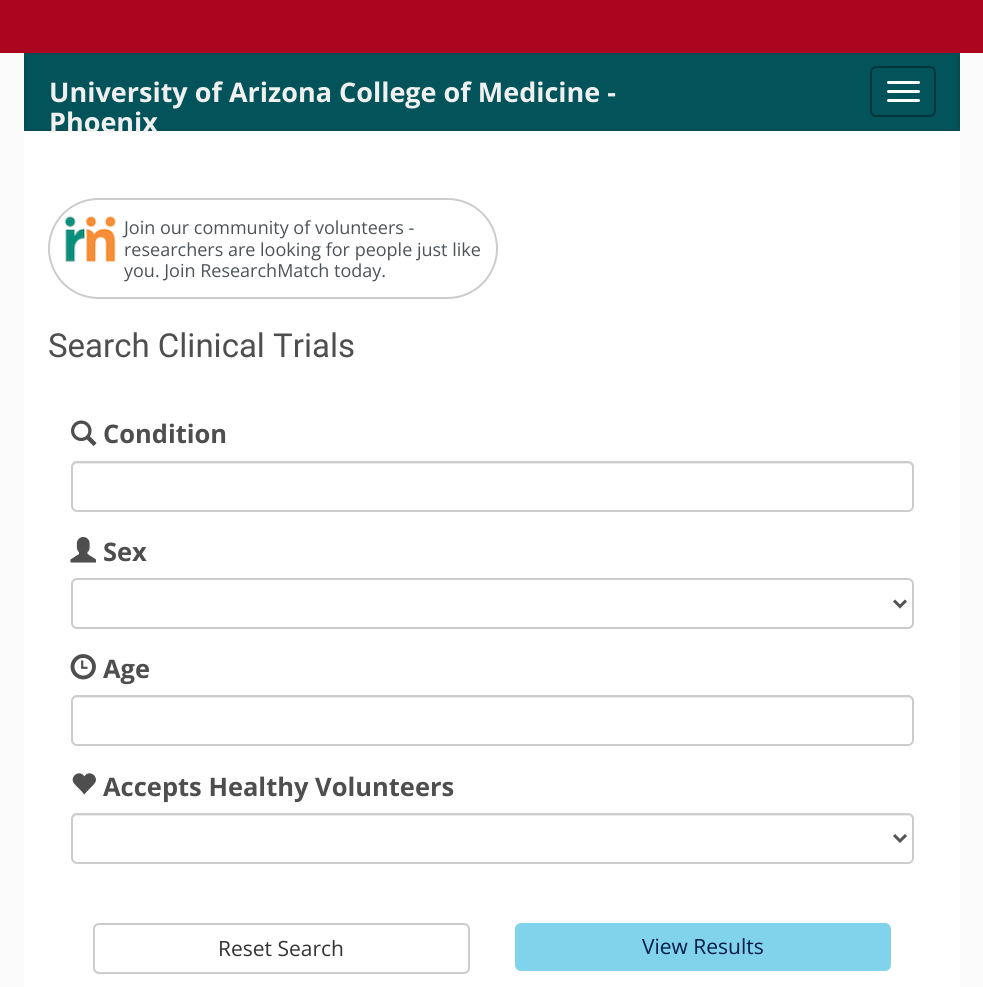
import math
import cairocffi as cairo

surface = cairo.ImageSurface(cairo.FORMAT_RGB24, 983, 987)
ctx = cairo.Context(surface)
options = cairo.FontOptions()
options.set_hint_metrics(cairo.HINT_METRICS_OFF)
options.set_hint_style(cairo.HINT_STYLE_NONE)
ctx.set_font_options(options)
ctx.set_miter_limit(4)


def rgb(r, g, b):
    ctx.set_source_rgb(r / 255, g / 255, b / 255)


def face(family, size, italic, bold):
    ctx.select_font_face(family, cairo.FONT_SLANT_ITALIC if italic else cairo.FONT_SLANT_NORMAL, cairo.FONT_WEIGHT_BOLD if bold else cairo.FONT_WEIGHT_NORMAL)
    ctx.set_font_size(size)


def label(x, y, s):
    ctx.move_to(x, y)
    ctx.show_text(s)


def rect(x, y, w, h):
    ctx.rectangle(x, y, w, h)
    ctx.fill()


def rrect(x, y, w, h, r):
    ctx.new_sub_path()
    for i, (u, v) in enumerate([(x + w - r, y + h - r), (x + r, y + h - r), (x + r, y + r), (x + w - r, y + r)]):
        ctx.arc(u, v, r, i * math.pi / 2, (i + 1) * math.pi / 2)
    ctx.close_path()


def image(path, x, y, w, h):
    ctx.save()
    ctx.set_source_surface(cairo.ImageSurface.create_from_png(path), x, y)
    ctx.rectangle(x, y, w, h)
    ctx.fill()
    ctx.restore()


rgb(251, 251, 251)
ctx.paint()
rgb(171, 5, 32)
rect(0, 0, 983, 53)
rgb(255, 255, 255)
rect(24, 131, 936, 856)
rgb(2, 83, 90)
ctx.rectangle(25, 54, 934, 76)
ctx.fill_preserve()
rgb(9, 77, 83)
ctx.stroke()
face('Open Sans', 27, 0, 1)
rgb(240, 240, 240)
label(49, 102, 'University of Arizona College of Medicine -')
label(49, 132, 'Phoenix')
rrect(871, 67, 64, 49, 5)
rgb(1, 55, 60)
ctx.stroke()
rgb(255, 255, 255)
rrect(887, 81, 33, 3, 1.5)
ctx.fill()
rrect(887, 90, 33, 3, 1.5)
ctx.fill()
rrect(887, 99, 33, 3, 1.5)
ctx.fill()
rrect(49, 199, 448, 99, 49.5)
rgb(204, 204, 204)
ctx.stroke()
image('image0.png', 64, 216, 52, 46)
face('Open Sans', 18, 0, 0)
rgb(77, 83, 87)
label(124, 234, 'Join our community of volunteers -')
label(124, 256, 'researchers are looking for people just like')
label(124, 277, 'you. Join ResearchMatch today.')
face('Roboto', 33, 0, 0)
rgb(78, 78, 78)
label(48, 357, 'Search Clinical Trials')
image('image1.png', 71, 420, 26, 26)
face('Open Sans', 25.5, 0, 1)
label(103, 443, 'Condition')
rgb(236, 236, 236)
ctx.new_path()
ctx.move_to(76, 464)
ctx.line_to(908, 464)
ctx.curve_to(910, 464, 912, 466, 912, 468)
ctx.line_to(912, 467)
ctx.curve_to(912, 464, 910, 462, 907, 462)
ctx.line_to(77, 462)
ctx.curve_to(74, 462, 72, 464, 72, 467)
ctx.line_to(72, 468)
ctx.curve_to(72, 466, 74, 464, 76, 464)
ctx.close_path()
ctx.fill()
rrect(72, 462, 841, 49, 5)
rgb(204, 204, 204)
ctx.stroke()
image('image2.png', 70, 537, 26, 26)
rgb(78, 78, 78)
label(103, 561, 'Sex')
rgb(236, 236, 236)
ctx.new_path()
ctx.move_to(76, 580)
ctx.line_to(908, 580)
ctx.curve_to(910, 580, 912, 583, 912, 585)
ctx.line_to(912, 584)
ctx.curve_to(912, 581, 910, 579, 907, 579)
ctx.line_to(77, 579)
ctx.curve_to(74, 579, 72, 581, 72, 584)
ctx.line_to(72, 585)
ctx.curve_to(72, 583, 74, 580, 76, 580)
ctx.close_path()
ctx.fill()
rrect(72, 579, 841, 49, 5)
rgb(204, 204, 204)
ctx.stroke()
ctx.new_path()
ctx.move_to(894, 600.5)
ctx.line_to(900, 606.5)
ctx.line_to(906, 600.5)
rgb(85, 85, 85)
ctx.set_line_width(3)
ctx.stroke()
image('image3.png', 70, 654, 26, 26)
rgb(78, 78, 78)
label(103, 678, 'Age')
rgb(236, 236, 236)
ctx.new_path()
ctx.move_to(76, 698)
ctx.line_to(908, 698)
ctx.curve_to(910, 698, 912, 700, 912, 702)
ctx.line_to(912, 701)
ctx.curve_to(912, 698, 910, 696, 907, 696)
ctx.line_to(77, 696)
ctx.curve_to(74, 696, 72, 698, 72, 701)
ctx.line_to(72, 702)
ctx.curve_to(72, 700, 74, 698, 76, 698)
ctx.close_path()
ctx.fill()
rrect(72, 696, 841, 49, 5)
rgb(204, 204, 204)
ctx.set_line_width(2)
ctx.stroke()
image('image4.png', 72, 773, 24, 22)
rgb(78, 78, 78)
label(103, 796, 'Accepts Healthy Volunteers')
rgb(236, 236, 236)
ctx.new_path()
ctx.move_to(76, 816)
ctx.line_to(908, 816)
ctx.curve_to(910, 816, 912, 818, 912, 820)
ctx.curve_to(912, 817, 910, 815, 907, 815)
ctx.line_to(77, 815)
ctx.curve_to(74, 815, 72, 817, 72, 820)
ctx.curve_to(72, 818, 74, 816, 76, 816)
ctx.close_path()
ctx.fill()
rrect(72, 814, 841, 49, 5)
rgb(204, 204, 204)
ctx.stroke()
ctx.new_path()
ctx.move_to(894, 835)
ctx.line_to(900, 841)
ctx.line_to(906, 835)
rgb(85, 85, 85)
ctx.set_line_width(3)
ctx.stroke()
rrect(94, 924, 375, 49, 5)
rgb(204, 204, 204)
ctx.set_line_width(2)
ctx.stroke()
face('Open Sans', 21, 0, 0)
rgb(51, 51, 51)
label(218, 956, 'Reset Search')
rgb(129, 211, 235)
rrect(515, 923, 376, 48, 6)
ctx.fill()
rgb(1, 28, 72)
label(642, 954, 'View Results')
surface.write_to_png('render.png')
